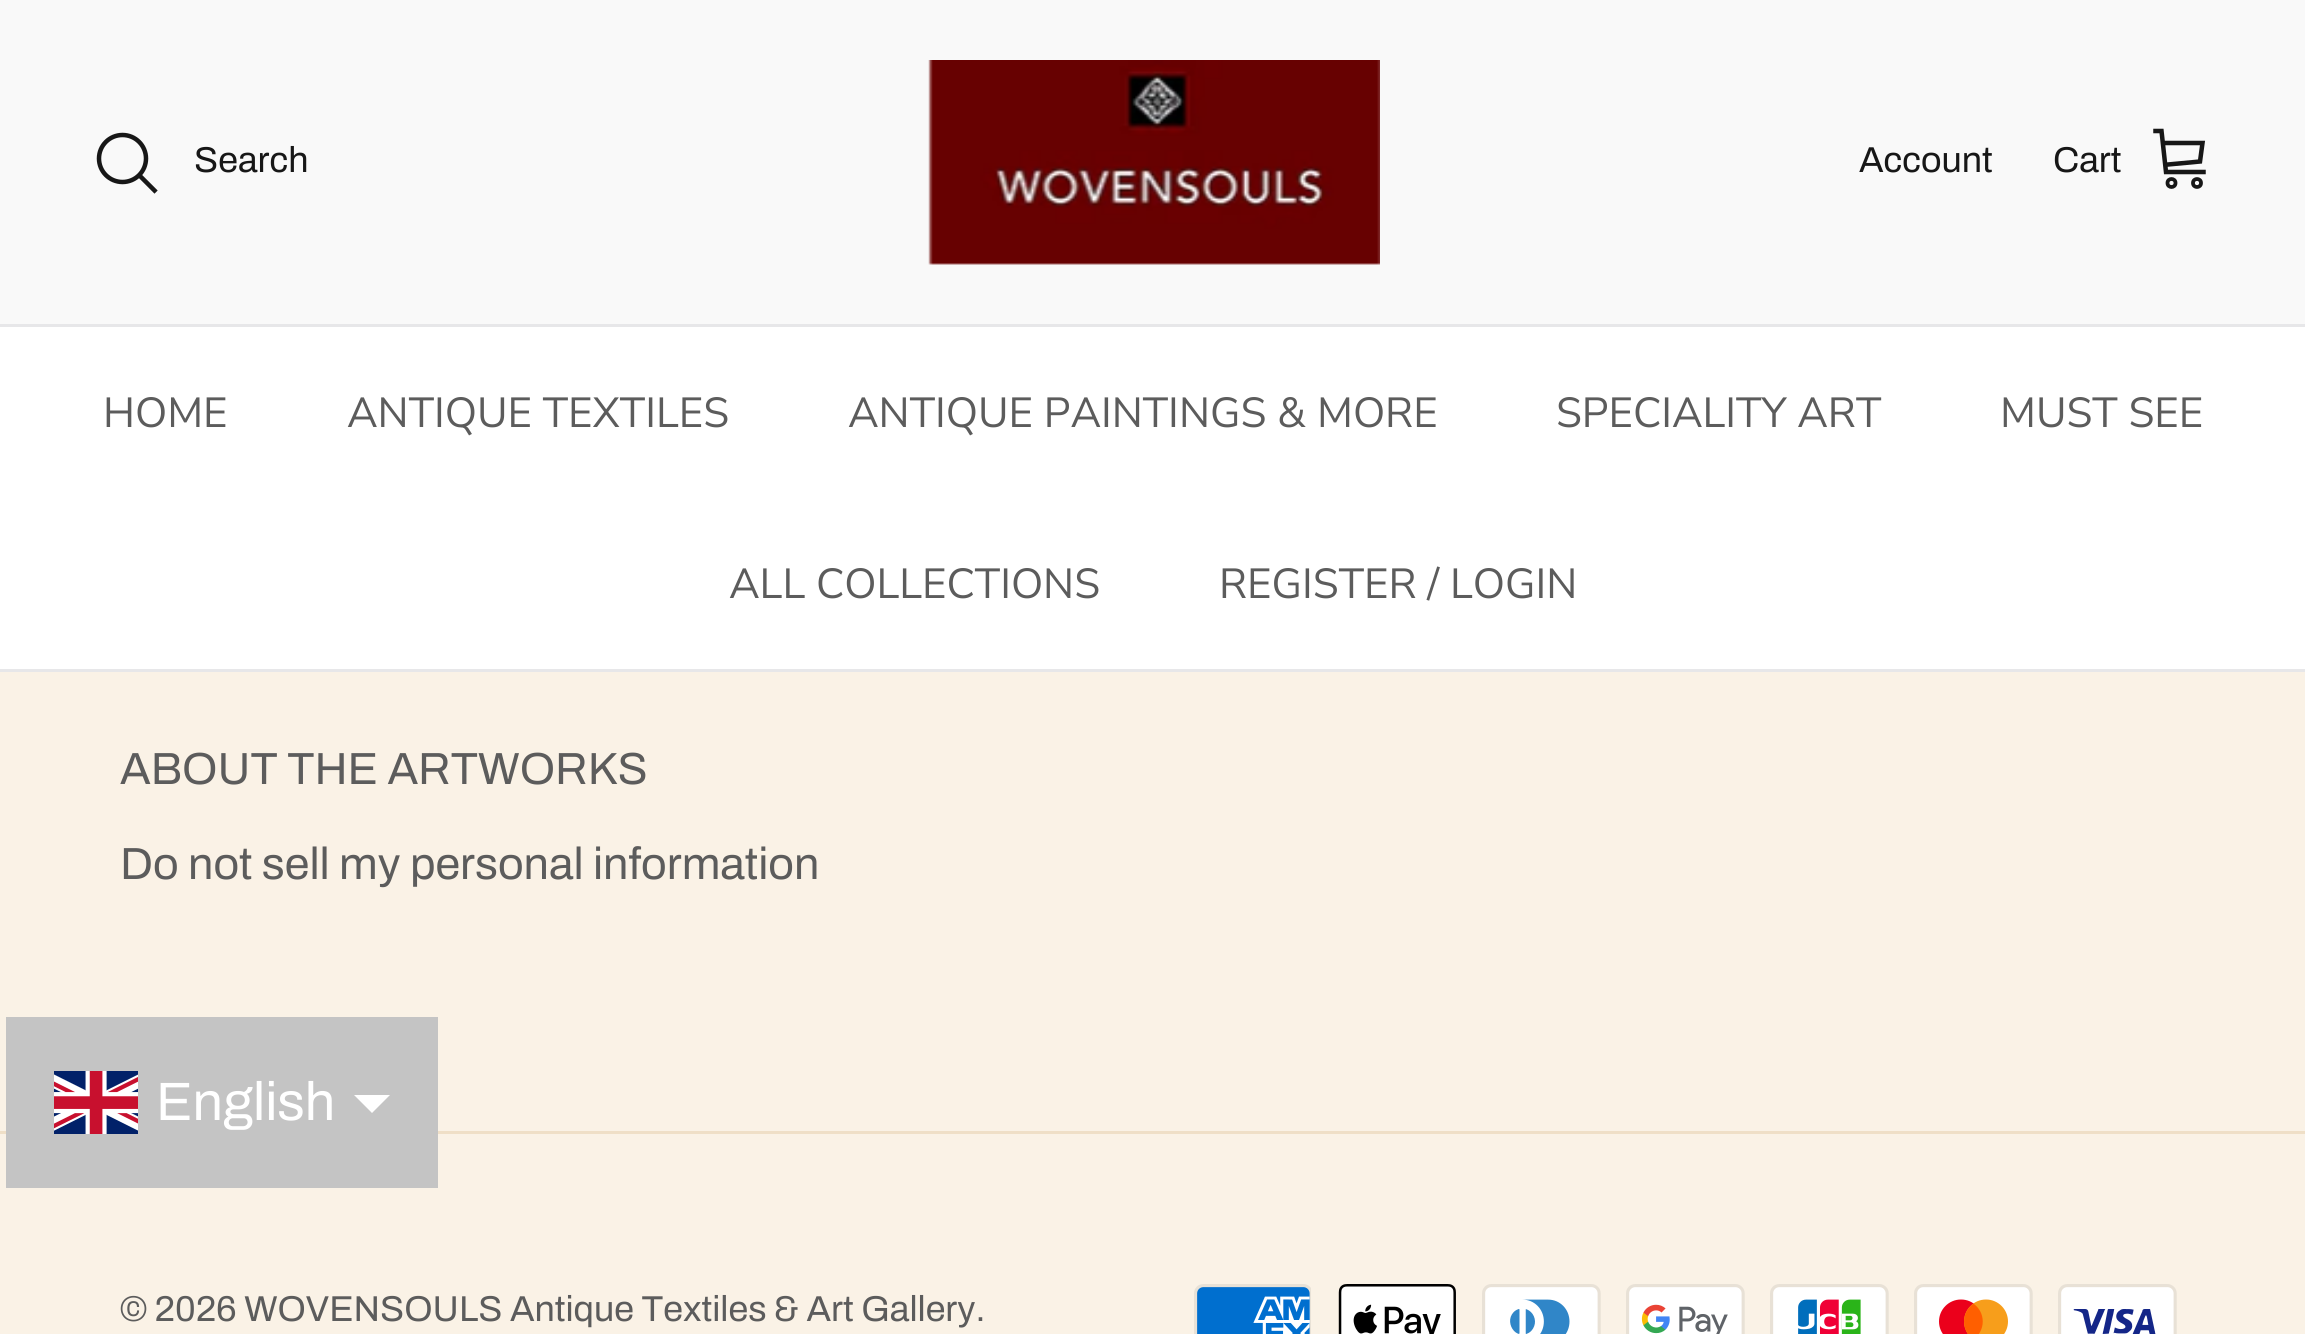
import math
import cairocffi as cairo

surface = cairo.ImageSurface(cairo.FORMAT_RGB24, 2305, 1334)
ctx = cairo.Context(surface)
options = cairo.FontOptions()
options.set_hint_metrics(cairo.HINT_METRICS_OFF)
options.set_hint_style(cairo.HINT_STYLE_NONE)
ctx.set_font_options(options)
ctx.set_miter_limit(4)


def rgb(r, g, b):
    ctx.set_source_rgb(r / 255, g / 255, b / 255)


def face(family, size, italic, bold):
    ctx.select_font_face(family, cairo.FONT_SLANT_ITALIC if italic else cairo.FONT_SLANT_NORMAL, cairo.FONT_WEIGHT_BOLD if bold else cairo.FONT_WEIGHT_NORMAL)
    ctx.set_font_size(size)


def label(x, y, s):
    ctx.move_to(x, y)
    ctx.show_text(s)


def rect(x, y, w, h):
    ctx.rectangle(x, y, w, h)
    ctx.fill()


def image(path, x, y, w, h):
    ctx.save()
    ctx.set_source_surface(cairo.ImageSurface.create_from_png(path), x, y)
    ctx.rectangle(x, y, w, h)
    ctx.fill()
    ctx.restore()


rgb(250, 242, 230)
ctx.paint()
rgb(249, 249, 249)
rect(0, 0, 2305, 324)
rgb(231, 231, 233)
rect(0, 324, 2305, 3)
ctx.arc(122.5, 158.5, 23.5, 0, 2 * math.pi)
rgb(23, 23, 23)
ctx.set_line_width(4.5)
ctx.stroke()
face('Archivo', 36, 0, 0)
label(194, 172, 'Search')
ctx.new_path()
ctx.move_to(141, 177)
ctx.line_to(154.5, 190.5)
ctx.set_line_cap(cairo.LINE_CAP_SQUARE)
ctx.stroke()
image('image0.png', 928, 60, 452, 205)
label(1859, 172, 'Account')
label(2053, 172, 'Cart')
ctx.new_path()
ctx.move_to(2155.5, 131)
ctx.line_to(2161.5, 131)
ctx.line_to(2166, 172)
ctx.line_to(2203.5, 172)
ctx.move_to(2163.5, 143)
ctx.line_to(2202.5, 143)
ctx.line_to(2200, 161.5)
ctx.line_to(2168, 164.5)
ctx.stroke()
ctx.arc(2171.5, 183, 4, 0, 2 * math.pi)
ctx.set_line_width(3.8)
ctx.set_line_cap(cairo.LINE_CAP_BUTT)
ctx.stroke()
ctx.arc(2197, 183, 4, 0, 2 * math.pi)
ctx.stroke()
rgb(231, 231, 233)
rect(0, 669, 2305, 3)
rgb(255, 255, 255)
rect(0, 327, 2305, 342)
face('Nunito Sans', 42, 0, 0)
rgb(92, 92, 92)
label(103, 427, 'HOME')
label(347, 427, 'ANTIQUE TEXTILES')
label(848, 427, 'ANTIQUE PAINTINGS & MORE')
label(1556, 427, 'SPECIALITY ART')
label(2000, 427, 'MUST SEE')
label(729, 598, 'ALL COLLECTIONS')
label(1219, 598, 'REGISTER / LOGIN')
face('Archivo', 45, 0, 0)
label(120, 784, 'ABOUT THE ARTWORKS')
label(120, 879, 'Do not sell my personal information')
rgb(239, 223, 199)
rect(0, 1131, 2305, 3)
face('Archivo', 36, 0, 0)
rgb(92, 92, 92)
label(120, 1321, '© 2026 WOVENSOULS Antique Textiles & Art Gallery.')
image('image1.png', 1194, 1284, 117, 50)
image('image2.png', 1338, 1284, 118, 50)
image('image3.png', 1482, 1284, 119, 50)
image('image4.png', 1626, 1284, 119, 50)
image('image5.png', 1770, 1284, 119, 50)
image('image6.png', 1914, 1284, 119, 50)
image('image7.png', 2058, 1284, 119, 50)
rgb(196, 196, 196)
rect(6, 1017, 432, 171)
image('image8.png', 54, 1071, 84, 63)
face('Archivo', 54, 0, 0)
rgb(255, 255, 255)
label(156, 1120, 'English')
ctx.new_path()
ctx.move_to(354, 1095)
ctx.line_to(390, 1095)
ctx.line_to(372, 1113)
ctx.close_path()
ctx.fill()
surface.write_to_png('render.png')
